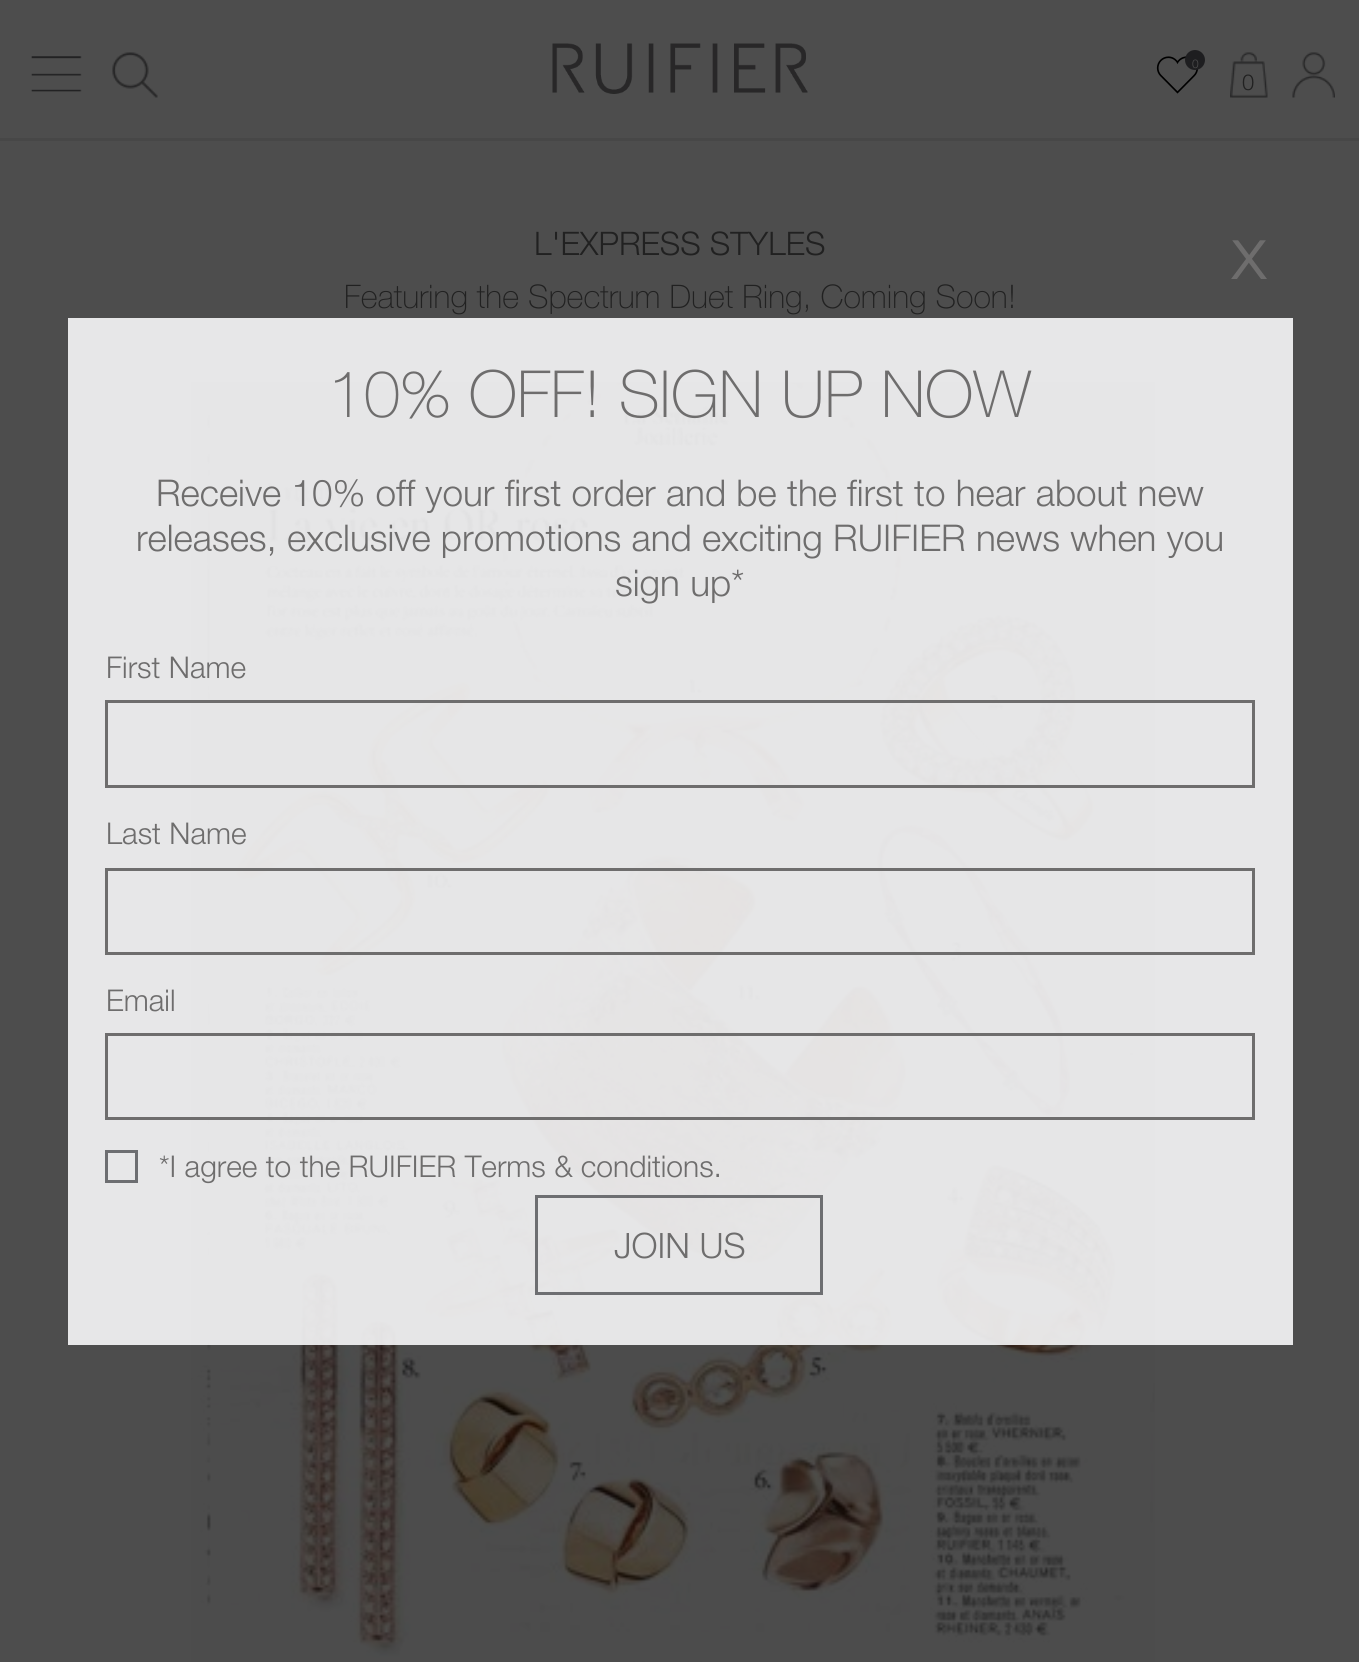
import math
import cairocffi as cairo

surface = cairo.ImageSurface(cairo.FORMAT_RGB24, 1359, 1662)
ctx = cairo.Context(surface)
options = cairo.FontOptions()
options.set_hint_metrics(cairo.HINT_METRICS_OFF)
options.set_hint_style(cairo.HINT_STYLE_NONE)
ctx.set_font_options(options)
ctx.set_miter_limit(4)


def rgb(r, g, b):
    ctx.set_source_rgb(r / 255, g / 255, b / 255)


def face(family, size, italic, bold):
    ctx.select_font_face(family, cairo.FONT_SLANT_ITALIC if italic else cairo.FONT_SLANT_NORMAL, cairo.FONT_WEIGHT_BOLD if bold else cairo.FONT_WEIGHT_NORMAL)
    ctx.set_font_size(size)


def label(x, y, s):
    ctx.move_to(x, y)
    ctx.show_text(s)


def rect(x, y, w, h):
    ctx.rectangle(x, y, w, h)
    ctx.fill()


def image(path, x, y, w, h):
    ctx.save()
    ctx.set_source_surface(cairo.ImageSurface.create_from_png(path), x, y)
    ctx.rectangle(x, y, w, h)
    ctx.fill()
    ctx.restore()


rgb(77, 77, 77)
ctx.paint()
rgb(71, 71, 71)
rect(0, 138, 1359, 3)
image('image0.png', 31, 56, 51, 36)
image('image1.png', 112, 52, 46, 46)
image('image2.png', 552, 43, 256, 51)
image('image3.png', 1156, 56, 42, 38)
rgb(30, 30, 32)
ctx.arc(1195, 60, 10, 0, 2 * math.pi)
ctx.fill()
face('Helvetica Neue Light', 12, 0, 0)
rgb(77, 77, 77)
label(1192, 68, '0')
image('image4.png', 1292, 52, 43, 46)
image('image5.png', 1230, 52, 38, 46)
face('Helvetica Neue Light', 22, 0, 0)
rgb(33, 33, 33)
label(1242, 90, '0')
face('Helvetica Neue Light', 32.5, 0, 0)
label(534, 255, 'L\'EXPRESS STYLES')
face('Helvetica Neue Thin', 32.5, 0, 0)
label(344, 308, 'Featuring the Spectrum Duet Ring, Coming Soon!')
image('image6.png', 191, 382, 964, 1280)
face('Helvetica Neue Light', 75, 0, 0)
rgb(110, 109, 109)
label(1231, 279, 'x')
ctx.set_source_rgba(0.969, 0.969, 0.973, 0.9)
rect(68, 318, 1225, 1027)
face('Helvetica Neue Thin', 65, 0, 0)
rgb(110, 109, 109)
label(328, 417, '10% OFF! SIGN UP NOW')
face('Helvetica Neue Light', 36.9, 0, 0)
label(156, 506, 'Receive 10% off your first order and be the first to hear about new')
label(136, 551, 'releases, exclusive promotions and exciting RUIFIER news when you')
label(615, 596, 'sign up*')
face('Helvetica Neue Light', 30, 0, 0)
label(106, 678, 'First Name')
ctx.rectangle(106.5, 701.5, 1147, 85)
ctx.set_line_width(3)
ctx.stroke()
label(106, 844, 'Last Name')
ctx.rectangle(106.5, 869.5, 1147, 84)
ctx.stroke()
label(106, 1011, 'Email')
ctx.rectangle(106.5, 1034.5, 1147, 84)
ctx.stroke()
ctx.rectangle(106.5, 1151.5, 30, 30)
rgb(109, 110, 113)
ctx.stroke()
rgb(110, 109, 109)
label(159, 1177, '*I agree to the RUIFIER Terms & conditions.')
ctx.rectangle(536.5, 1196.5, 285, 97)
rgb(109, 110, 113)
ctx.stroke()
face('Helvetica Neue Light', 35, 0, 0)
rgb(110, 109, 109)
label(614, 1258, 'JOIN US')
surface.write_to_png('render.png')
